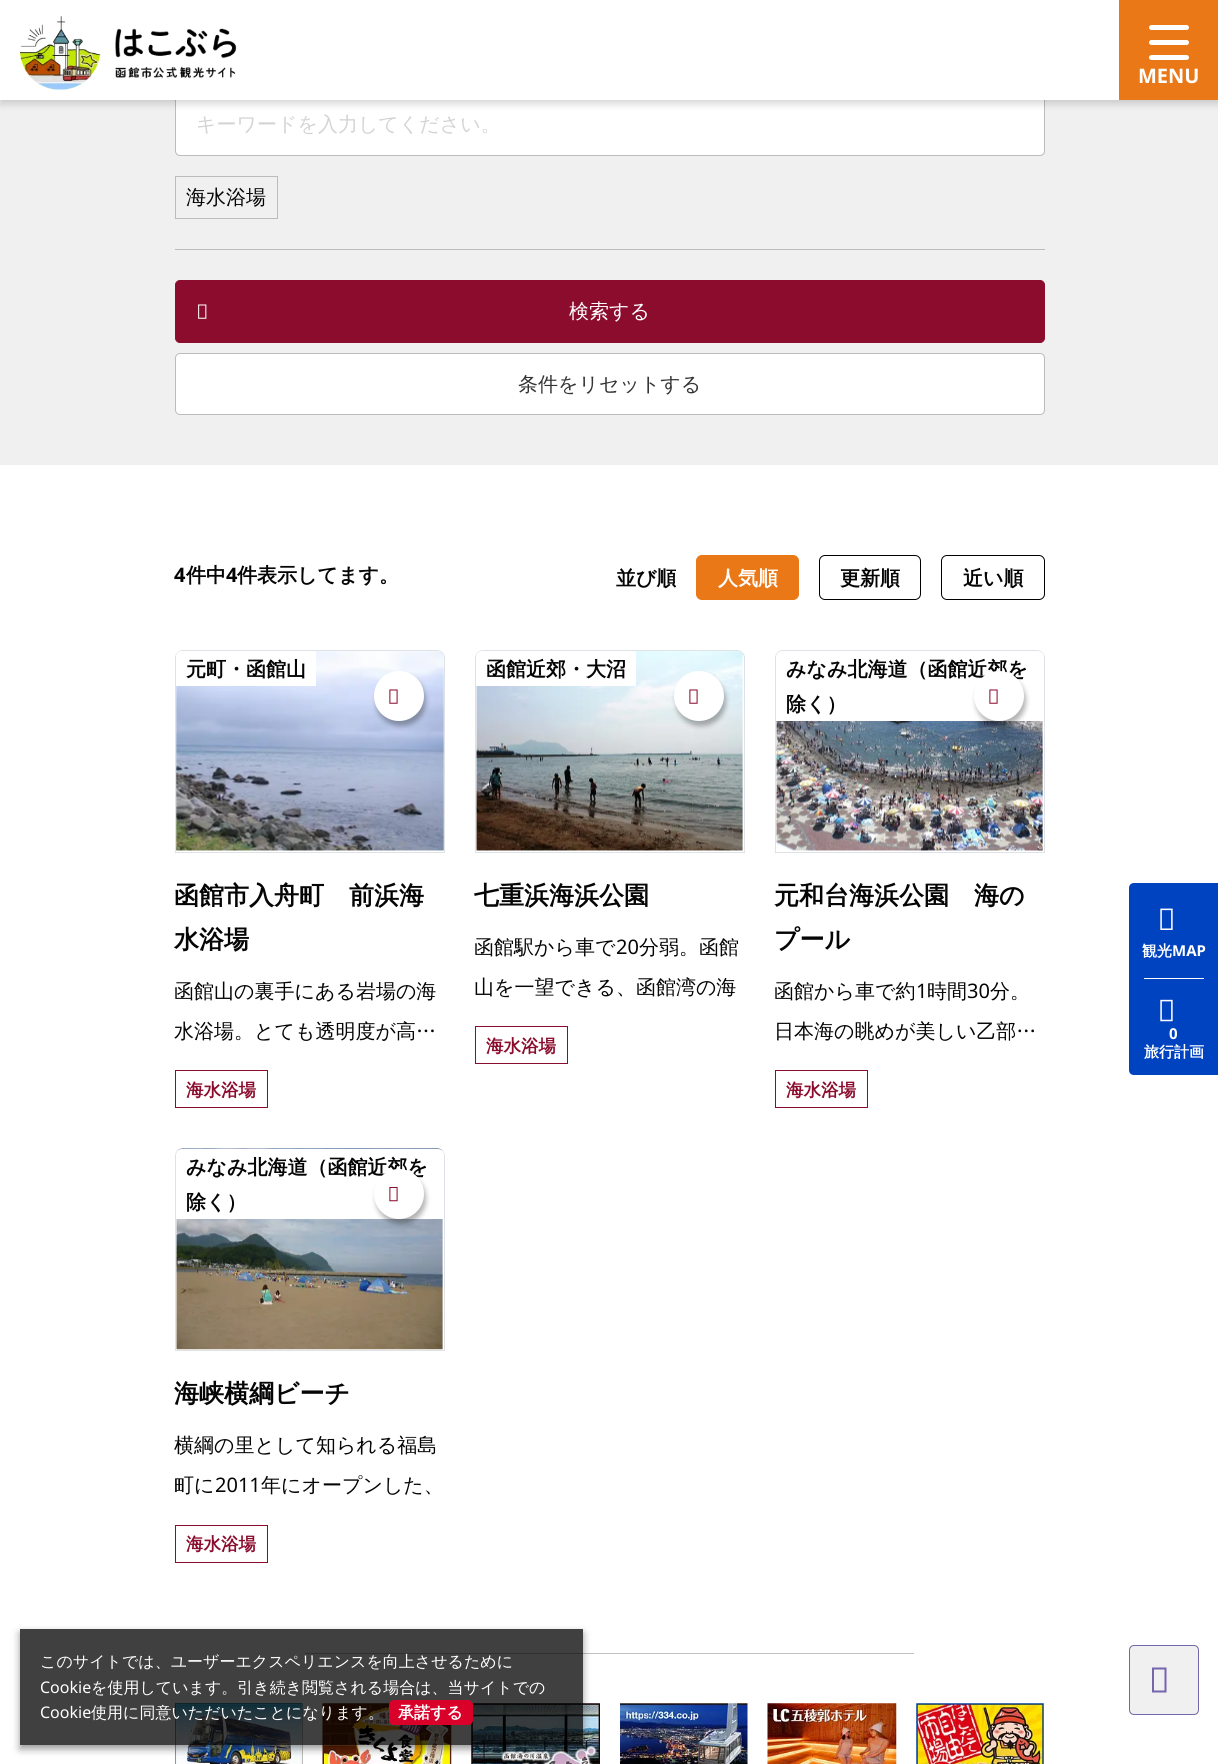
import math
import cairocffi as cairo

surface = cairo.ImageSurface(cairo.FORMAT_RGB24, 1218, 1764)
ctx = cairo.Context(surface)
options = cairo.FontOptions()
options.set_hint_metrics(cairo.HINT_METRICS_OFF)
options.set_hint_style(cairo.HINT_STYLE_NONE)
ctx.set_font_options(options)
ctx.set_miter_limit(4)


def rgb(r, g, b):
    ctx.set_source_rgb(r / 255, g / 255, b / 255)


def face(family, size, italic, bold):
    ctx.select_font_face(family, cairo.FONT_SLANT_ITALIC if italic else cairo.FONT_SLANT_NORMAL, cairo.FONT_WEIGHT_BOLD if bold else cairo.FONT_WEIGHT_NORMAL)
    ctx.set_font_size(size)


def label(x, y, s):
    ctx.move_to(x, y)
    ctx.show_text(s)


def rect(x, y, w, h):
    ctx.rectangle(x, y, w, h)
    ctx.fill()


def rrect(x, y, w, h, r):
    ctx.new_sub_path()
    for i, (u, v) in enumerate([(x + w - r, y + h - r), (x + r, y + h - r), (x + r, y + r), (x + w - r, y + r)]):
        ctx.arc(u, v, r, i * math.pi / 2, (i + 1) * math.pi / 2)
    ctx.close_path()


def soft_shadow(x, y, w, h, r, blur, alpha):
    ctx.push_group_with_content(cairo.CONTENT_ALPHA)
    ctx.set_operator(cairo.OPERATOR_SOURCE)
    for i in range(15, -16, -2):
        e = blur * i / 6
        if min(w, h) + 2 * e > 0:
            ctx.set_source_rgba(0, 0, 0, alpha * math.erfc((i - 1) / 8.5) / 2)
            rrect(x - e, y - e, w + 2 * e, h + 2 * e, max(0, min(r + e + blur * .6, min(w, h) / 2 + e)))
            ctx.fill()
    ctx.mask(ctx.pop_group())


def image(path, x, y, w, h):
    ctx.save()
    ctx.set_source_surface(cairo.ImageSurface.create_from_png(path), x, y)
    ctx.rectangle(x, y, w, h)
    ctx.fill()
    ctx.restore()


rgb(255, 255, 255)
ctx.paint()
rgb(240, 240, 240)
rect(0, 100, 1218, 365)
rrect(175.5, 93.5, 869, 62, 4.5)
rgb(188, 188, 188)
ctx.set_line_width(1)
ctx.stroke()
rgb(255, 255, 255)
rrect(176, 94, 868, 61, 5)
ctx.fill()
rgb(0, 0, 0)
soft_shadow(0, 4, 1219, 100, 0, 4, 0.16)
rgb(255, 255, 255)
rect(0, 0, 1119, 100)
image('image0.png', 20, 16, 217, 74)
rgb(234, 120, 22)
rect(1119, 0, 99, 100)
rgb(255, 255, 255)
rrect(1149, 40, 40, 5, 2.5)
ctx.fill()
rrect(1149, 25, 40, 5, 2.5)
ctx.fill()
rrect(1149, 55, 40, 5, 2.5)
ctx.fill()
face('Noto Sans', 20, 0, 1)
label(1138, 83, 'MENU')
face('WenQuanYi Zen Hei Medium', 20, 0, 0)
rgb(212, 212, 212)
label(196, 131, 'キーワードを入力してください。')
ctx.rectangle(175.5, 176.5, 102, 42)
rgb(188, 188, 188)
ctx.stroke()
rgb(5, 5, 5)
label(186, 204, '海水浴場')
rgb(188, 188, 188)
rect(175, 249, 870, 1)
rgb(139, 12, 45)
rrect(175.5, 280.5, 869, 62, 4.5)
ctx.fill_preserve()
ctx.stroke()
image('image1.png', 198, 304, 9, 15)
rgb(255, 255, 255)
label(569, 318, '検索する')
rrect(175.5, 353.5, 869, 61, 4.5)
ctx.fill_preserve()
rgb(188, 188, 188)
ctx.stroke()
rgb(51, 51, 51)
label(518, 391, '条件をリセットする')
face('Noto Sans', 20, 0, 1)
rgb(5, 5, 5)
label(174, 582, '4')
face('WenQuanYi Zen Hei', 20, 0, 1)
label(186, 582, '件中')
face('Noto Sans', 20, 0, 1)
label(226, 582, '4')
face('WenQuanYi Zen Hei', 20, 0, 1)
label(237, 582, '件表示してます。')
label(616, 585, '並び順')
rgb(234, 120, 22)
rrect(696.5, 555.5, 102, 44, 5.5)
ctx.fill_preserve()
ctx.stroke()
rgb(255, 255, 255)
label(718, 585, '人気順')
rrect(819.5, 555.5, 101, 44, 5.5)
rgb(0, 0, 0)
ctx.stroke()
rgb(5, 5, 5)
label(840, 585, '更新順')
rrect(941.5, 555.5, 103, 44, 5.5)
rgb(0, 0, 0)
ctx.stroke()
rgb(5, 5, 5)
label(963, 585, '近い順')
ctx.new_path()
ctx.move_to(183, 650.5)
ctx.line_to(437, 650.5)
ctx.curve_to(441, 650.5, 444.5, 654, 444.5, 658)
ctx.line_to(444.5, 852.5)
ctx.line_to(175.5, 852.5)
ctx.line_to(175.5, 658)
ctx.curve_to(175.5, 654, 179, 650.5, 183, 650.5)
ctx.close_path()
rgb(222, 226, 230)
ctx.stroke()
image('image2.png', 176, 651, 268, 200)
rgb(255, 255, 255)
ctx.new_path()
ctx.move_to(182, 651)
ctx.line_to(316, 651)
ctx.line_to(316, 686)
ctx.line_to(176, 686)
ctx.line_to(176, 657)
ctx.curve_to(176, 653.5, 178.5, 651, 182, 651)
ctx.close_path()
ctx.fill()
rgb(5, 5, 5)
label(186, 676, '元町・函館山')
rgb(0, 0, 0)
soft_shadow(376, 676, 50, 50, 25, 2.5, 0.3)
rgb(255, 255, 255)
ctx.arc(399, 696, 25, 0, 2 * math.pi)
ctx.fill()
image('image3.png', 389, 689, 9, 15)
face('WenQuanYi Zen Hei', 25, 0, 1)
rgb(5, 5, 5)
label(174, 904, '函館市入舟町　前浜海')
label(174, 948, '水浴場')
face('WenQuanYi Zen Hei Medium', 20, 0, 0)
label(174, 998, '函館山の裏手にある岩場の海')
label(174, 1038, '水浴場。とても透明度が高…')
ctx.rectangle(175.5, 1070.5, 92, 37)
rgb(139, 12, 45)
ctx.stroke()
face('WenQuanYi Zen Hei', 17.5, 0, 1)
label(186, 1096, '海水浴場')
ctx.new_path()
ctx.move_to(483, 650.5)
ctx.line_to(737, 650.5)
ctx.curve_to(741, 650.5, 744.5, 654, 744.5, 658)
ctx.line_to(744.5, 852.5)
ctx.line_to(475.5, 852.5)
ctx.line_to(475.5, 658)
ctx.curve_to(475.5, 654, 479, 650.5, 483, 650.5)
ctx.close_path()
rgb(222, 226, 230)
ctx.stroke()
image('image4.png', 476, 651, 267, 200)
rgb(255, 255, 255)
ctx.new_path()
ctx.move_to(482, 651)
ctx.line_to(636, 651)
ctx.line_to(636, 686)
ctx.line_to(476, 686)
ctx.line_to(476, 657)
ctx.curve_to(476, 653.5, 478.5, 651, 482, 651)
ctx.close_path()
ctx.fill()
face('WenQuanYi Zen Hei', 20, 0, 1)
rgb(5, 5, 5)
label(486, 676, '函館近郊・大沼')
rgb(0, 0, 0)
soft_shadow(676, 676, 50, 50, 25, 2.5, 0.3)
rgb(255, 255, 255)
ctx.arc(699, 696, 25, 0, 2 * math.pi)
ctx.fill()
image('image3.png', 689, 689, 9, 15)
face('WenQuanYi Zen Hei', 25, 0, 1)
rgb(5, 5, 5)
label(474, 904, '七重浜海浜公園')
face('WenQuanYi Zen Hei Medium', 20, 0, 0)
label(474, 954, '函館駅から車で')
face('Noto Sans', 20, 0, 0)
label(616, 954, '20')
face('WenQuanYi Zen Hei Medium', 20, 0, 0)
label(639, 954, '分弱。函館')
label(474, 994, '山を一望できる、函館湾の海')
ctx.rectangle(475.5, 1026.5, 92, 37)
rgb(139, 12, 45)
ctx.stroke()
face('WenQuanYi Zen Hei', 17.5, 0, 1)
label(486, 1052, '海水浴場')
ctx.new_path()
ctx.move_to(783, 650.5)
ctx.line_to(1037, 650.5)
ctx.curve_to(1041, 650.5, 1044.5, 654, 1044.5, 658)
ctx.line_to(1044.5, 852.5)
ctx.line_to(775.5, 852.5)
ctx.line_to(775.5, 658)
ctx.curve_to(775.5, 654, 779, 650.5, 783, 650.5)
ctx.close_path()
rgb(222, 226, 230)
ctx.stroke()
image('image5.png', 776, 651, 267, 200)
rgb(255, 255, 255)
ctx.new_path()
ctx.move_to(782, 651)
ctx.line_to(1038, 651)
ctx.curve_to(1041.5, 651, 1044, 653.5, 1044, 657)
ctx.line_to(1044, 721)
ctx.line_to(776, 721)
ctx.line_to(776, 657)
ctx.curve_to(776, 653.5, 778.5, 651, 782, 651)
ctx.close_path()
ctx.fill()
face('WenQuanYi Zen Hei', 20, 0, 1)
rgb(5, 5, 5)
label(786, 676, 'みなみ北海道（函館近郊を')
label(786, 711, '除く）')
rgb(0, 0, 0)
soft_shadow(976, 676, 50, 50, 25, 2.5, 0.3)
rgb(255, 255, 255)
ctx.arc(999, 696, 25, 0, 2 * math.pi)
ctx.fill()
image('image3.png', 989, 689, 9, 15)
face('WenQuanYi Zen Hei', 25, 0, 1)
rgb(5, 5, 5)
label(774, 904, '元和台海浜公園　海の')
label(774, 948, 'プール')
face('WenQuanYi Zen Hei Medium', 20, 0, 0)
label(774, 998, '函館から車で約')
face('Noto Sans', 20, 0, 0)
label(916, 998, '1')
face('WenQuanYi Zen Hei Medium', 20, 0, 0)
label(927, 998, '時間')
face('Noto Sans', 20, 0, 0)
label(967, 998, '30')
face('WenQuanYi Zen Hei Medium', 20, 0, 0)
label(990, 998, '分。')
label(774, 1038, '日本海の眺めが美しい乙部…')
ctx.rectangle(775.5, 1070.5, 92, 37)
rgb(139, 12, 45)
ctx.stroke()
face('WenQuanYi Zen Hei', 17.5, 0, 1)
label(786, 1096, '海水浴場')
ctx.new_path()
ctx.move_to(183, 1148.5)
ctx.line_to(437, 1148.5)
ctx.curve_to(441, 1148.5, 444.5, 1152, 444.5, 1156)
ctx.line_to(444.5, 1350.5)
ctx.line_to(175.5, 1350.5)
ctx.line_to(175.5, 1156)
ctx.curve_to(175.5, 1152, 179, 1148.5, 183, 1148.5)
ctx.close_path()
rgb(222, 226, 230)
ctx.stroke()
image('image6.png', 176, 1148, 267, 202)
rgb(255, 255, 255)
ctx.new_path()
ctx.move_to(182, 1149)
ctx.line_to(438, 1149)
ctx.curve_to(441.5, 1149, 444, 1151.5, 444, 1155)
ctx.line_to(444, 1219)
ctx.line_to(176, 1219)
ctx.line_to(176, 1155)
ctx.curve_to(176, 1151.5, 178.5, 1149, 182, 1149)
ctx.close_path()
ctx.fill()
face('WenQuanYi Zen Hei', 20, 0, 1)
rgb(5, 5, 5)
label(186, 1174, 'みなみ北海道（函館近郊を')
label(186, 1209, '除く）')
rgb(0, 0, 0)
soft_shadow(376, 1174, 50, 50, 25, 2.5, 0.3)
rgb(255, 255, 255)
ctx.arc(399, 1194, 25, 0, 2 * math.pi)
ctx.fill()
image('image7.png', 389, 1186, 9, 16)
face('WenQuanYi Zen Hei', 25, 0, 1)
rgb(5, 5, 5)
label(174, 1402, '海峡横綱ビーチ')
face('WenQuanYi Zen Hei Medium', 20, 0, 0)
label(174, 1452, '横綱の里として知られる福島')
label(174, 1492, '町に')
face('Noto Sans', 20, 0, 0)
label(215, 1492, '2011')
face('WenQuanYi Zen Hei Medium', 20, 0, 0)
label(261, 1492, '年にオープンした、')
ctx.rectangle(175.5, 1525.5, 92, 37)
rgb(139, 12, 45)
ctx.stroke()
face('WenQuanYi Zen Hei', 17.5, 0, 1)
label(186, 1550, '海水浴場')
rgb(0, 67, 193)
ctx.new_path()
ctx.move_to(1134, 883)
ctx.line_to(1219, 883)
ctx.line_to(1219, 1075)
ctx.line_to(1134, 1075)
ctx.curve_to(1131, 1075, 1129, 1073, 1129, 1070)
ctx.line_to(1129, 888)
ctx.curve_to(1129, 885, 1131, 883, 1134, 883)
ctx.close_path()
ctx.fill()
image('image8.png', 1160, 908, 13, 22)
face('WenQuanYi Zen Hei', 15, 0, 1)
rgb(255, 255, 255)
label(1142, 956, '観光')
face('Noto Sans', 15, 0, 1)
label(1172, 956, 'MAP')
rect(1144, 978, 60, 1)
image('image9.png', 1160, 999, 13, 23)
label(1169, 1039, '0')
face('WenQuanYi Zen Hei', 15, 0, 1)
label(1144, 1057, '旅行計画')
rgb(193, 193, 193)
rect(305, 1653, 609, 1)
image('image10.png', 175, 1703, 128, 61)
image('image11.png', 322, 1703, 130, 61)
image('image12.png', 471, 1703, 129, 61)
ctx.save()
ctx.set_fill_rule(cairo.FILL_RULE_EVEN_ODD)
ctx.new_path()
ctx.move_to(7, 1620)
ctx.line_to(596, 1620)
ctx.line_to(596, 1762)
ctx.line_to(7, 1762)
ctx.close_path()
ctx.move_to(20, 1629)
ctx.line_to(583, 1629)
ctx.line_to(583, 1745)
ctx.line_to(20, 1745)
ctx.close_path()
ctx.clip()
rgb(0, 0, 0)
soft_shadow(20, 1633, 563, 116, 0, 4, 0.4)
ctx.restore()
ctx.set_source_rgba(0, 0, 0, 0.75)
rect(20, 1629, 563, 116)
face('WenQuanYi Zen Hei Medium', 16, 0, 0)
rgb(255, 255, 255)
label(40, 1667, 'このサイトでは、ユーザーエクスペリエンスを向上させるために')
face('Noto Sans', 16, 0, 0)
label(40, 1693, 'Cookie')
face('WenQuanYi Zen Hei Medium', 16, 0, 0)
label(91, 1693, 'を使用しています。引き続き閲覧される場合は、当サイトでの')
face('Noto Sans', 16, 0, 0)
label(40, 1718, 'Cookie')
face('WenQuanYi Zen Hei Medium', 16, 0, 0)
label(91, 1718, '使用に同意いただいたことになります。')
rgb(217, 0, 42)
rrect(389, 1700, 84, 25, 5)
ctx.fill()
face('WenQuanYi Zen Hei', 16, 0, 1)
rgb(255, 255, 255)
label(398, 1718, '承諾する')
rgb(240, 240, 240)
rrect(1129.5, 1645.5, 69, 69, 4.5)
ctx.fill_preserve()
rgb(117, 101, 173)
ctx.stroke()
ctx.new_path()
ctx.move_to(1152, 1692.5)
ctx.line_to(1152, 1667.5)
ctx.line_to(1166.5, 1667.5)
ctx.line_to(1166.5, 1692.5)
ctx.close_path()
ctx.move_to(1154, 1690.5)
ctx.line_to(1164.5, 1690.5)
ctx.line_to(1164.5, 1669.5)
ctx.line_to(1154, 1669.5)
ctx.close_path()
ctx.fill()
image('image13.png', 620, 1703, 128, 61)
image('image14.png', 767, 1703, 130, 61)
image('image15.png', 916, 1703, 128, 61)
surface.write_to_png('render.png')
